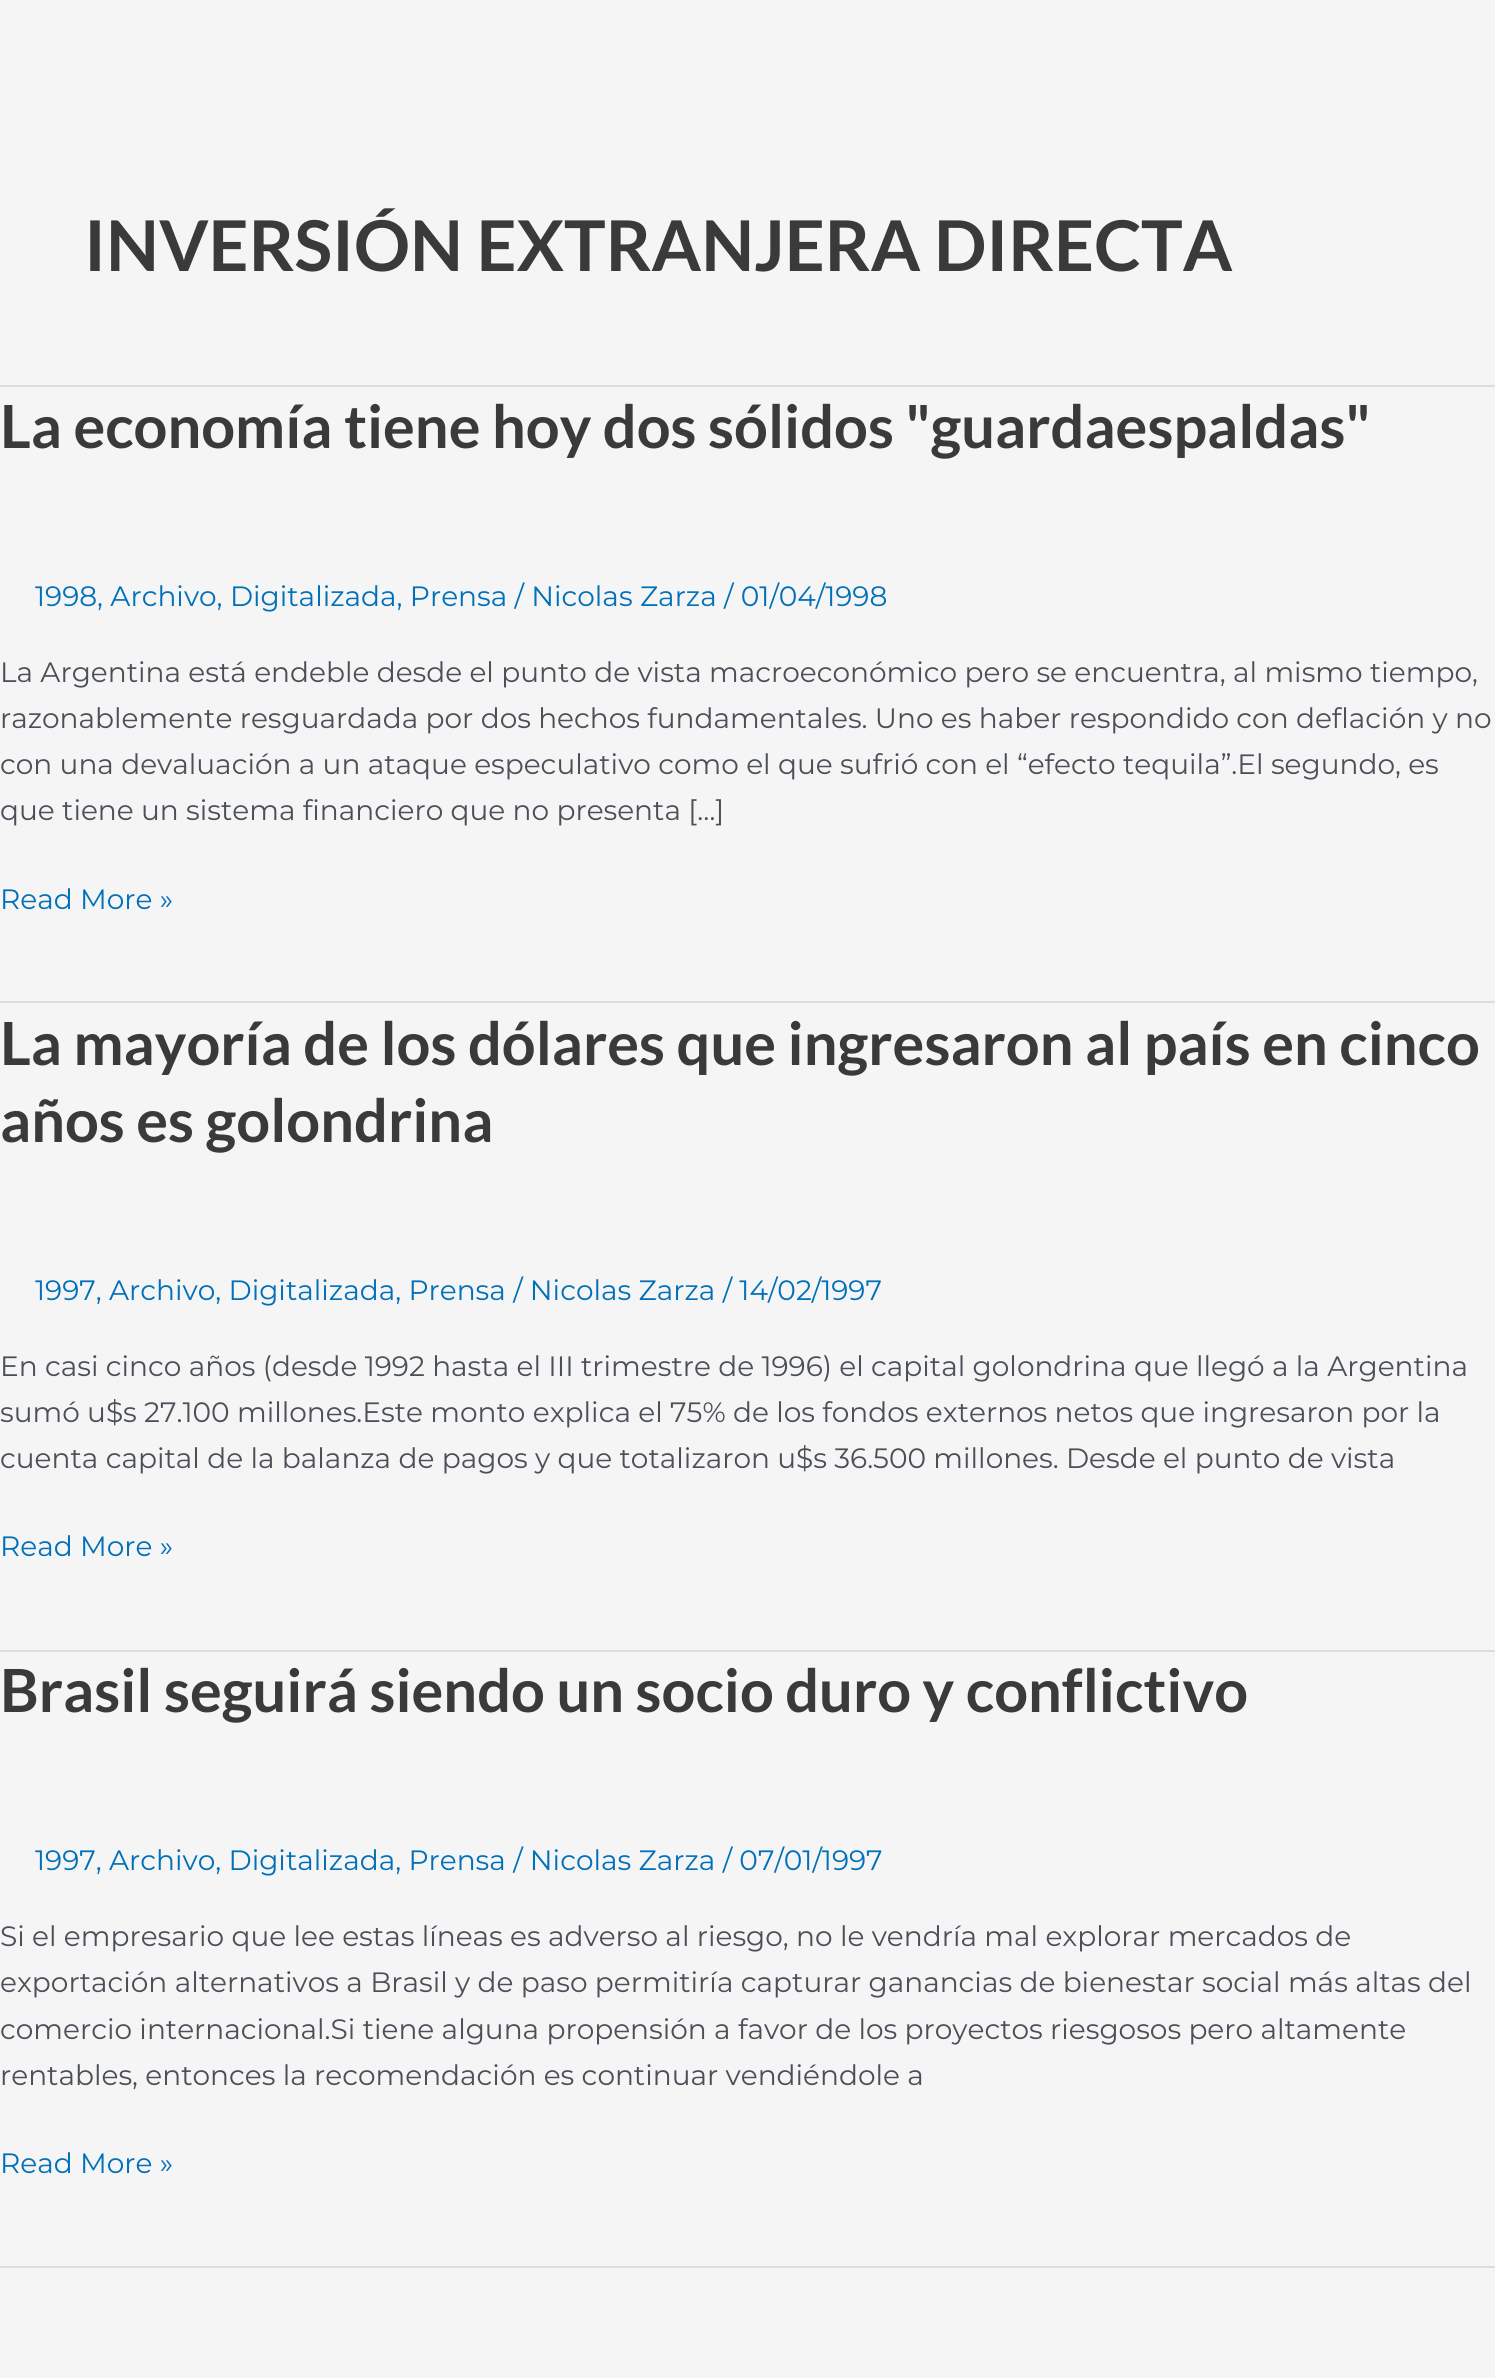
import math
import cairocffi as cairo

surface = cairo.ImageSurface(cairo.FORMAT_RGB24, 1495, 2378)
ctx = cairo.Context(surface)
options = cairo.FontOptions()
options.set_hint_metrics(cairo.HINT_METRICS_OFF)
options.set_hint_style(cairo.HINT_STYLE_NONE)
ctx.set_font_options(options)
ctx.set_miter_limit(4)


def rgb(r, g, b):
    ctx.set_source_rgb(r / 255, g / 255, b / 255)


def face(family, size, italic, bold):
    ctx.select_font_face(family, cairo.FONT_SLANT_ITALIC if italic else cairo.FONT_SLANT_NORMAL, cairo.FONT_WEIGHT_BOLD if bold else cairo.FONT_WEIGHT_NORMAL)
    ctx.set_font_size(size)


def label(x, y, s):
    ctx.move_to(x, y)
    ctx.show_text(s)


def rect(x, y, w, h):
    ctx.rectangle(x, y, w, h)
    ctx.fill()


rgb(245, 245, 245)
ctx.paint()
rgb(221, 221, 221)
rect(0, 385, 1495, 2)
face('Lato', 70, 0, 1)
rgb(58, 58, 58)
label(84, 271, 'INVERSIÓN EXTRANJERA DIRECTA')
rgb(221, 221, 221)
rect(0, 1001, 1495, 2)
face('Lato', 59.5, 0, 1)
rgb(58, 58, 58)
label(0, 448, 'La economía tiene hoy dos sólidos "guardaespaldas"')
face('Montserrat', 28, 0, 0)
rgb(1, 112, 185)
label(35, 606, '1998, Archivo, Digitalizada, Prensa / Nicolas Zarza / 01/04/1998')
rgb(75, 79, 88)
label(0, 682, 'La Argentina está endeble desde el punto de vista macroeconómico pero se encuentra, al mismo tiempo,')
label(0, 728, 'razonablemente resguardada por dos hechos fundamentales. Uno es haber respondido con deflación y no')
label(0, 774, 'con una devaluación a un ataque especulativo como el que sufrió con el “efecto tequila”.El segundo, es')
label(0, 820, 'que tiene un sistema financiero que no presenta […]')
rgb(1, 112, 185)
label(0, 909, 'Read More »')
rgb(221, 221, 221)
rect(0, 1650, 1495, 2)
face('Lato', 59.5, 0, 1)
rgb(58, 58, 58)
label(0, 1065, 'La mayoría de los dólares que ingresaron al país en cinco')
label(0, 1142, 'años es golondrina')
face('Montserrat', 28, 0, 0)
rgb(1, 112, 185)
label(35, 1300, '1997, Archivo, Digitalizada, Prensa / Nicolas Zarza / 14/02/1997')
rgb(75, 79, 88)
label(0, 1376, 'En casi cinco años (desde 1992 hasta el III trimestre de 1996) el capital golondrina que llegó a la Argentina')
label(0, 1422, 'sumó u$s 27.100 millones.Este monto explica el 75% de los fondos externos netos que ingresaron por la')
label(0, 1468, 'cuenta capital de la balanza de pagos y que totalizaron u$s 36.500 millones. Desde el punto de vista')
rgb(1, 112, 185)
label(0, 1556, 'Read More »')
rgb(221, 221, 221)
rect(0, 2266, 1495, 2)
face('Lato', 59.5, 0, 1)
rgb(58, 58, 58)
label(0, 1712, 'Brasil seguirá siendo un socio duro y conflictivo')
face('Montserrat', 28, 0, 0)
rgb(1, 112, 185)
label(35, 1870, '1997, Archivo, Digitalizada, Prensa / Nicolas Zarza / 07/01/1997')
rgb(75, 79, 88)
label(0, 1946, 'Si el empresario que lee estas líneas es adverso al riesgo, no le vendría mal explorar mercados de')
label(0, 1992, 'exportación alternativos a Brasil y de paso permitiría capturar ganancias de bienestar social más altas del')
label(0, 2039, 'comercio internacional.Si tiene alguna propensión a favor de los proyectos riesgosos pero altamente')
label(0, 2085, 'rentables, entonces la recomendación es continuar vendiéndole a')
rgb(1, 112, 185)
label(0, 2173, 'Read More »')
surface.write_to_png('render.png')
